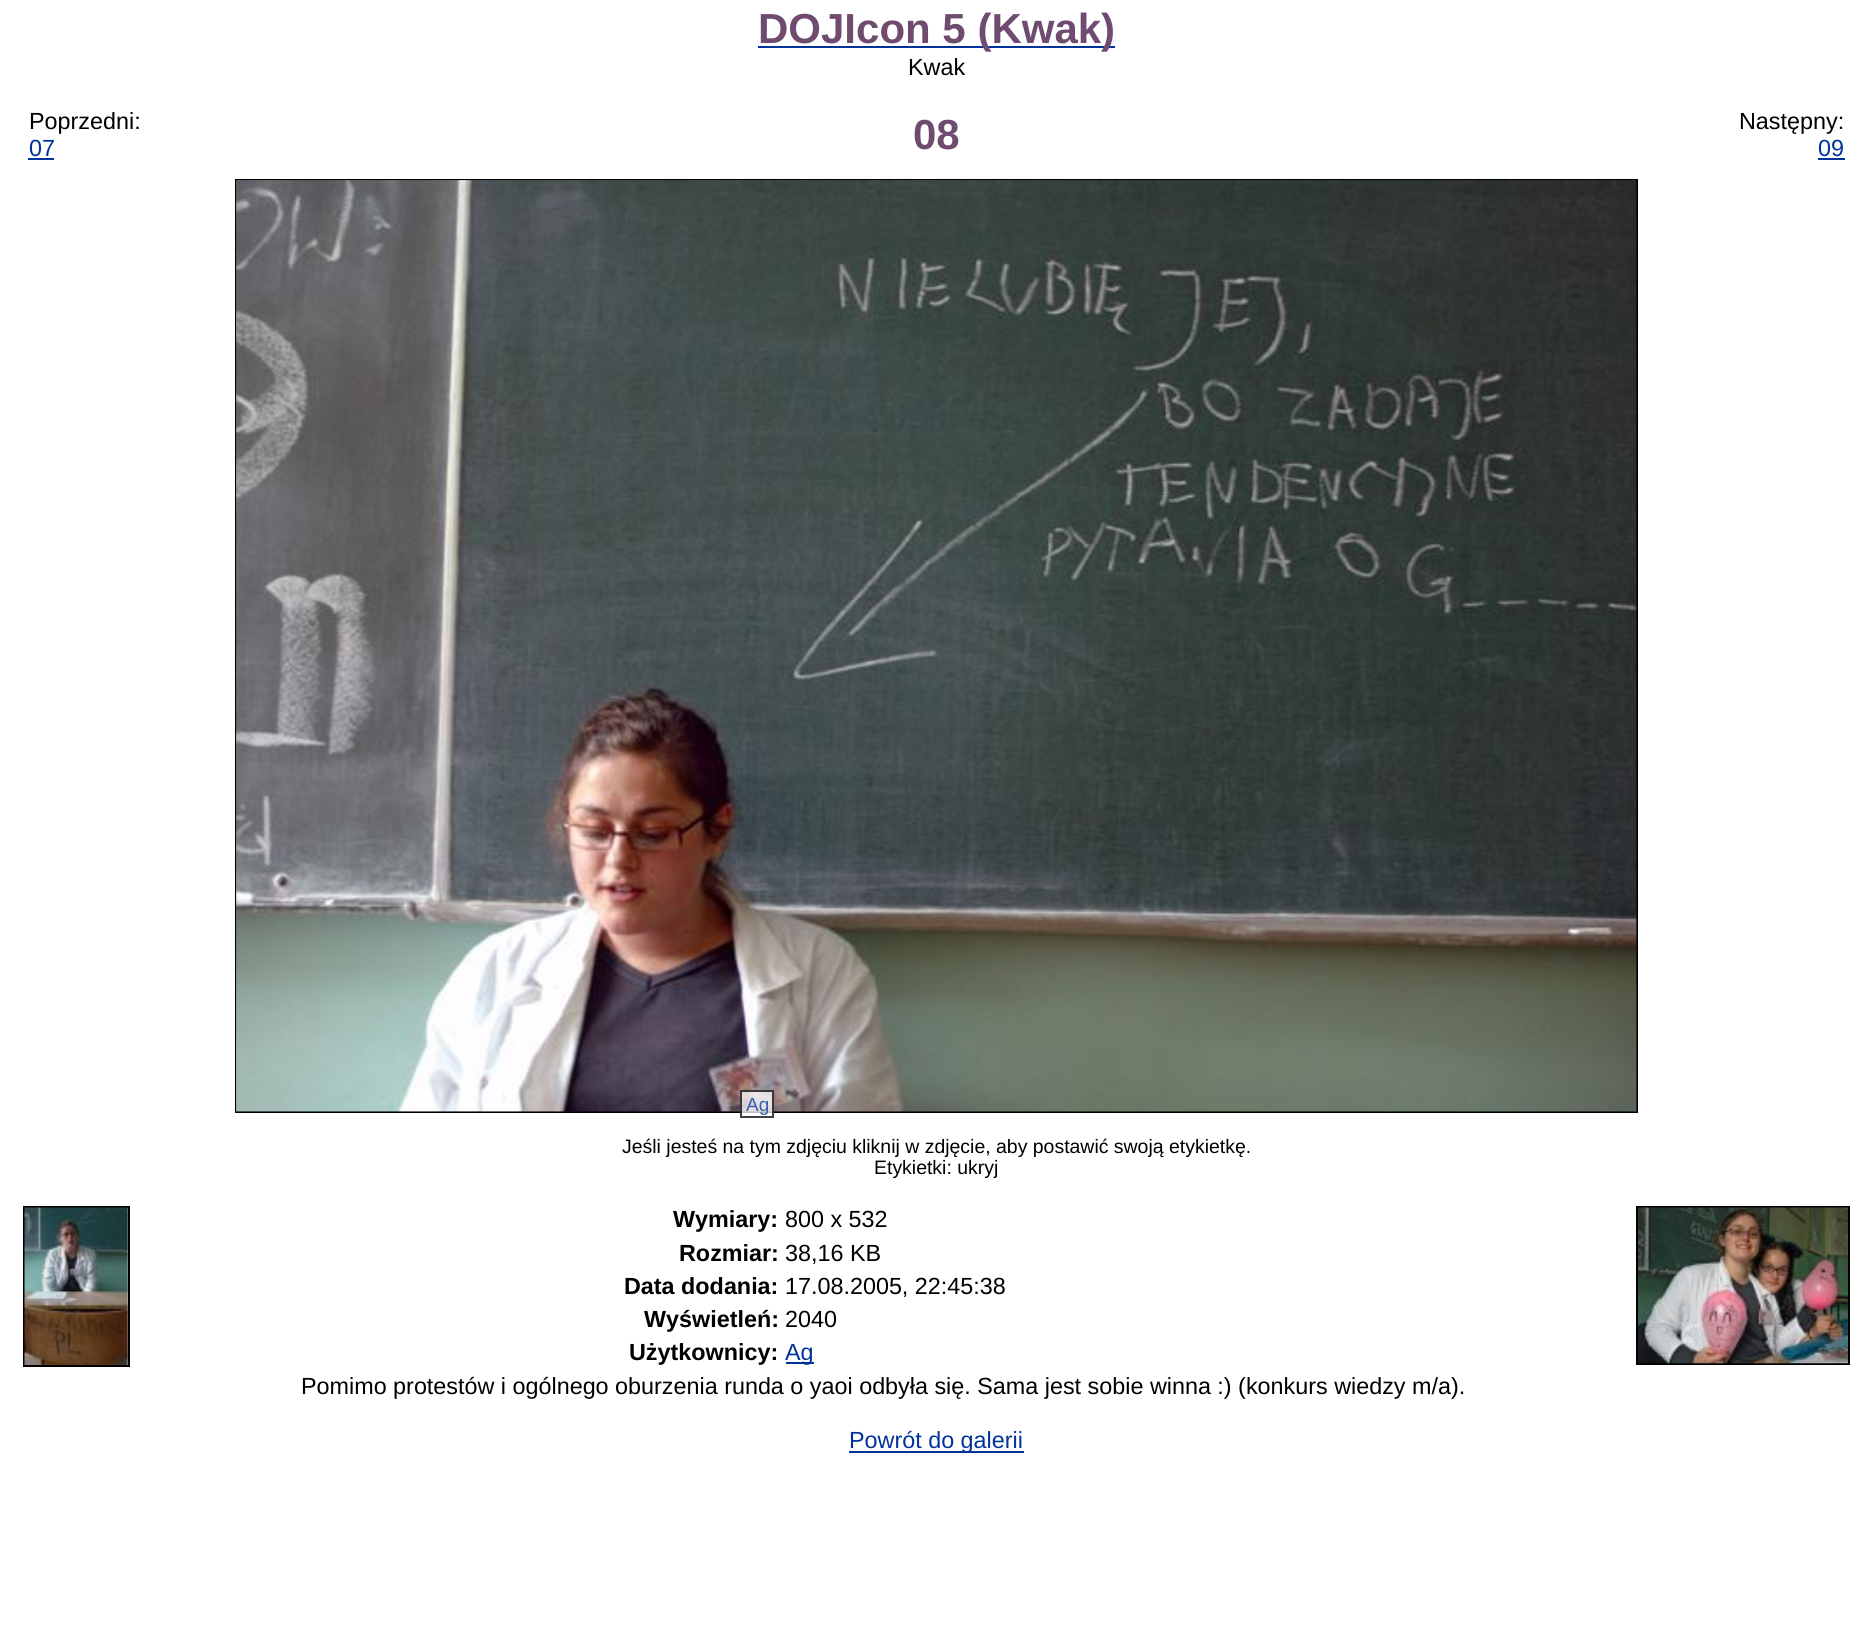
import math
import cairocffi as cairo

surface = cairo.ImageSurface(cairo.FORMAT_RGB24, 1872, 1643)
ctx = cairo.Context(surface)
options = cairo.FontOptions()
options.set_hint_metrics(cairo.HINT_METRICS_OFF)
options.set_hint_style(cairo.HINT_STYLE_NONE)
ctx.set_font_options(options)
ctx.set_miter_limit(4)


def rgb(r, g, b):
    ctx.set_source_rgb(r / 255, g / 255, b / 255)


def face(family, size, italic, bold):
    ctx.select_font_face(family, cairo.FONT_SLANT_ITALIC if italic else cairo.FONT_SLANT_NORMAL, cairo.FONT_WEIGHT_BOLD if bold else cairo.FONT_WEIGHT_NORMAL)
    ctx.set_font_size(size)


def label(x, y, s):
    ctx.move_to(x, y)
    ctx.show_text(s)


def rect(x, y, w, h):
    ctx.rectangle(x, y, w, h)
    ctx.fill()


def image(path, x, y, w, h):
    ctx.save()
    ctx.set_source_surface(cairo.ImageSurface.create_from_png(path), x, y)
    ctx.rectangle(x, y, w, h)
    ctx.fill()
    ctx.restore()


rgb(255, 255, 255)
ctx.paint()
rgb(0, 51, 153)
rect(758, 46, 357, 2)
face('Liberation Sans', 42, 0, 1)
rgb(111, 75, 111)
label(758, 43, 'DOJIcon 5 (Kwak)')
face('Liberation Sans', 23.35, 0, 0)
rgb(0, 0, 0)
label(908, 75, 'Kwak')
label(29, 129, 'Poprzedni:')
rgb(0, 51, 153)
label(29, 156, '07')
rect(28, 158, 26, 2)
face('Liberation Sans', 42, 0, 1)
rgb(111, 75, 111)
label(913, 149, '08')
face('Liberation Sans', 23.35, 0, 0)
rgb(0, 0, 0)
label(1739, 129, 'Następny:')
rgb(0, 51, 153)
label(1818, 156, '09')
rect(1818, 158, 27, 2)
ctx.rectangle(236, 180, 1401, 932)
rgb(0, 0, 0)
ctx.stroke()
image('image0.png', 236, 180, 1401, 932)
image('image1.png', 236, 180, 1401, 932)
ctx.set_source_rgba(1, 1, 1, 0.75)
rect(740, 1090, 34, 23)
ctx.rectangle(741, 1091, 32, 26)
ctx.set_source_rgba(0, 0, 0, 0.75)
ctx.stroke()
face('Liberation Sans', 19, 0, 0)
rgb(57, 94, 171)
label(746, 1111, 'Ag')
face('Liberation Sans', 19.45, 0, 0)
rgb(0, 0, 0)
label(622, 1153, 'Jeśli jesteś na tym zdjęciu kliknij w zdjęcie, aby postawić swoją etykietkę.')
label(874, 1174, 'Etykietki: ukryj')
ctx.rectangle(24, 1207, 105, 159)
ctx.stroke()
image('image2.png', 24, 1207, 104, 158)
face('Liberation Sans', 23.35, 0, 1)
label(673, 1227, 'Wymiary:')
face('Liberation Sans', 23.35, 0, 0)
label(785, 1227, '800 x 532')
face('Liberation Sans', 23.35, 0, 1)
label(679, 1261, 'Rozmiar:')
face('Liberation Sans', 23.35, 0, 0)
label(785, 1261, '38,16 KB')
face('Liberation Sans', 23.35, 0, 1)
label(624, 1294, 'Data dodania:')
face('Liberation Sans', 23.35, 0, 0)
label(785, 1294, '17.08.2005, 22:45:38')
face('Liberation Sans', 23.35, 0, 1)
label(644, 1327, 'Wyświetleń:')
face('Liberation Sans', 23.35, 0, 0)
label(785, 1327, '2040')
face('Liberation Sans', 23.35, 0, 1)
label(629, 1360, 'Użytkownicy:')
rgb(0, 51, 153)
rect(786, 1362, 28, 2)
face('Liberation Sans', 23.35, 0, 0)
label(785, 1360, 'Ag')
rgb(0, 0, 0)
label(301, 1394, 'Pomimo protestów i ogólnego oburzenia runda o yaoi odbyła się. Sama jest sobie winna :) (konkurs wiedzy m/a).')
ctx.rectangle(1637, 1207, 212, 157)
ctx.stroke()
image('image3.png', 1638, 1207, 210, 157)
rgb(0, 51, 153)
rect(849, 1451, 175, 2)
label(849, 1448, 'Powrót do galerii')
surface.write_to_png('render.png')
